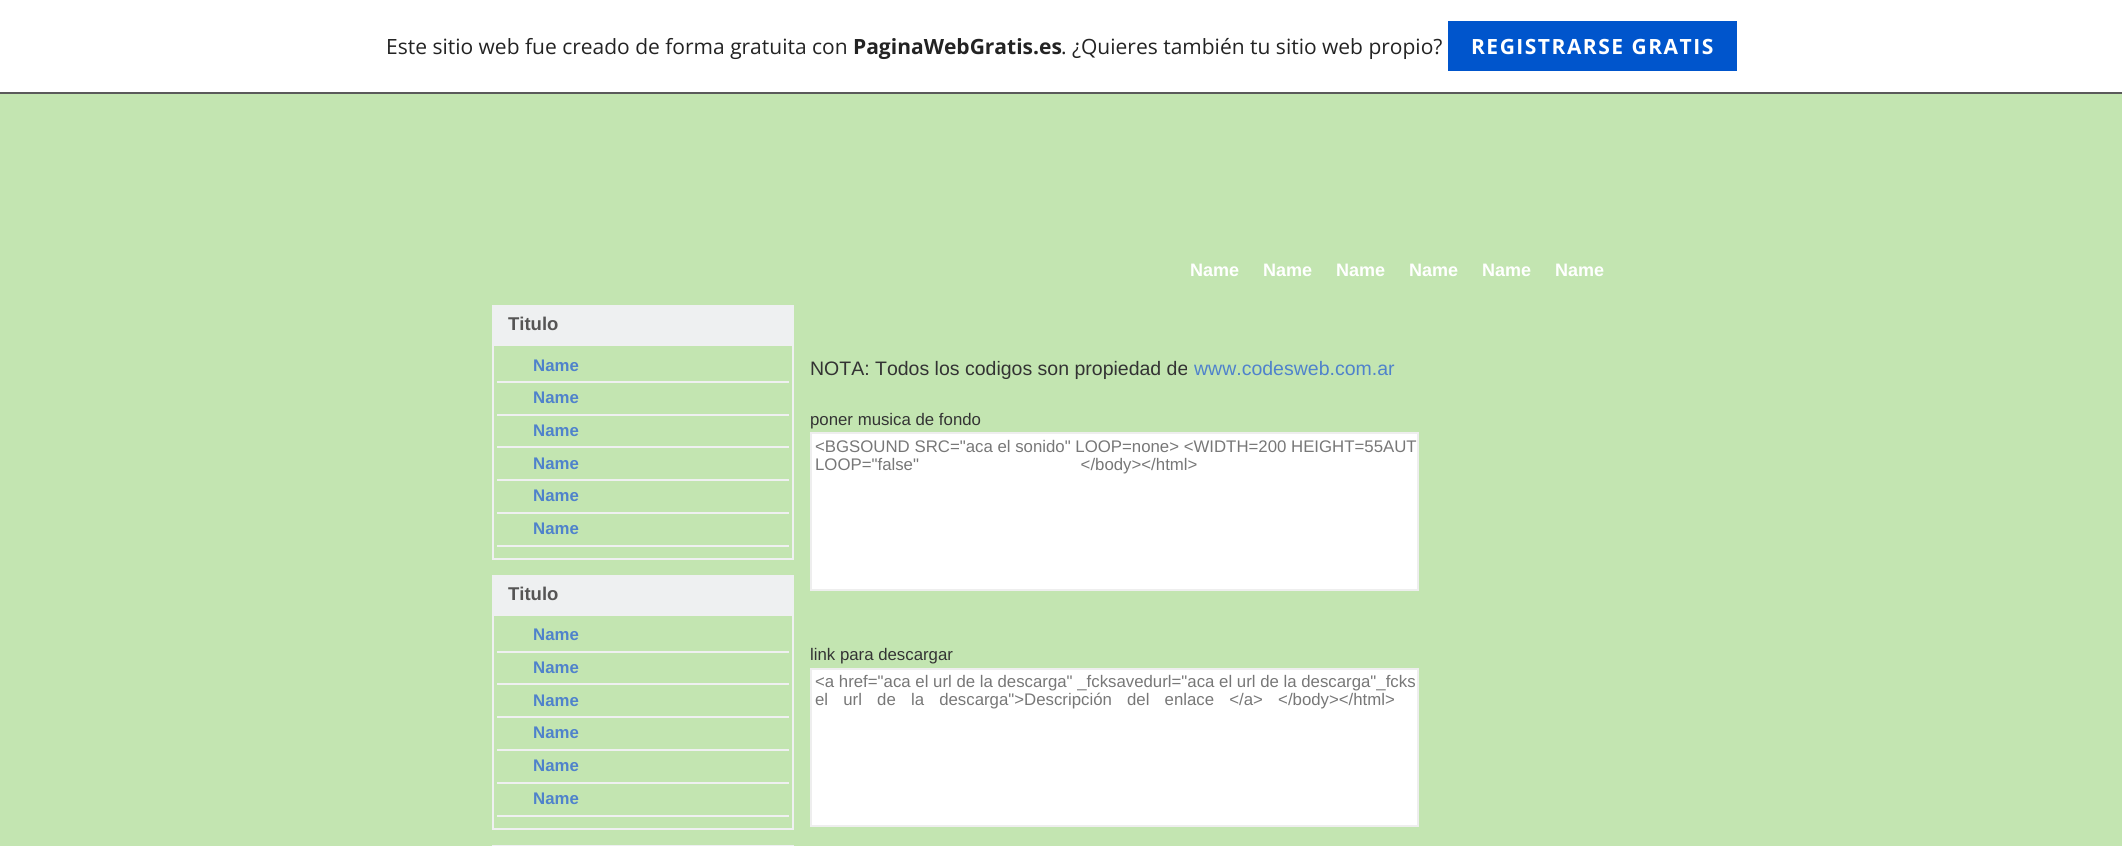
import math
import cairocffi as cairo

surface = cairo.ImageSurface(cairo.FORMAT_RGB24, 2122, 846)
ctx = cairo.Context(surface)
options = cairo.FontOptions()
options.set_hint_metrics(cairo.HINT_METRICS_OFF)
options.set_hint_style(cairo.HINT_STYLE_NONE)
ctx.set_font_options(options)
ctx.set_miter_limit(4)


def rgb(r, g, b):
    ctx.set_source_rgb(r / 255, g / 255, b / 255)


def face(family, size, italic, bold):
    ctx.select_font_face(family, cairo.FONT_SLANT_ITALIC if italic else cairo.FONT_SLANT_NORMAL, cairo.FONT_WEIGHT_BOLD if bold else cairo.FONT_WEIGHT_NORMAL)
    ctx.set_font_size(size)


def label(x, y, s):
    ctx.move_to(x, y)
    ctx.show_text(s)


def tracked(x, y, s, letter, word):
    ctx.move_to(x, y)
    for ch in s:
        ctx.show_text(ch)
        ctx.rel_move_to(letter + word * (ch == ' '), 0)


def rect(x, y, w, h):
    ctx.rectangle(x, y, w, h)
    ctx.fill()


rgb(195, 229, 177)
ctx.paint()
rgb(255, 255, 255)
rect(0, 0, 2122, 92)
rgb(90, 90, 90)
rect(0, 92, 2122, 2)
face('Open Sans', 21, 0, 0)
rgb(35, 35, 35)
label(386, 54, 'Este sitio web fue creado de forma gratuita con')
face('Open Sans', 21, 0, 1)
label(853, 54, 'PaginaWebGratis.es')
face('Open Sans', 21, 0, 0)
label(1061, 54, '. ¿Quieres también tu sitio web propio?')
rgb(0, 85, 204)
rect(1448, 21, 289, 50)
face('Open Sans', 21, 0, 1)
rgb(255, 255, 255)
tracked(1471, 54, 'REGISTRARSE GRATIS', 1.5, 0)
face('Liberation Sans', 18, 0, 1)
label(1190, 276, 'Name')
label(1263, 276, 'Name')
label(1336, 276, 'Name')
label(1409, 276, 'Name')
label(1482, 276, 'Name')
label(1555, 276, 'Name')
rgb(238, 240, 241)
rect(492, 305, 302, 39)
face('Liberation Sans', 18.5, 0, 1)
rgb(85, 85, 85)
label(508, 330, 'Titulo')
ctx.rectangle(493, 345, 300, 214)
rgb(239, 240, 241)
ctx.stroke()
rect(497, 381, 292, 2)
face('Liberation Sans', 16.8, 0, 1)
rgb(79, 130, 203)
label(533, 371, 'Name')
rgb(239, 240, 241)
rect(497, 414, 292, 2)
rgb(79, 130, 203)
label(533, 403, 'Name')
rgb(239, 240, 241)
rect(497, 446, 292, 2)
rgb(79, 130, 203)
label(533, 436, 'Name')
rgb(239, 240, 241)
rect(497, 479, 292, 2)
rgb(79, 130, 203)
label(533, 469, 'Name')
rgb(239, 240, 241)
rect(497, 512, 292, 2)
rgb(79, 130, 203)
label(533, 501, 'Name')
rgb(239, 240, 241)
rect(497, 545, 292, 2)
rgb(79, 130, 203)
label(533, 534, 'Name')
rgb(238, 240, 241)
rect(492, 575, 302, 39)
face('Liberation Sans', 18.5, 0, 1)
rgb(85, 85, 85)
label(508, 600, 'Titulo')
ctx.rectangle(493, 615, 300, 214)
rgb(239, 240, 241)
ctx.stroke()
rect(497, 651, 292, 2)
face('Liberation Sans', 16.8, 0, 1)
rgb(79, 130, 203)
label(533, 640, 'Name')
rgb(239, 240, 241)
rect(497, 683, 292, 2)
rgb(79, 130, 203)
label(533, 673, 'Name')
rgb(239, 240, 241)
rect(497, 716, 292, 2)
rgb(79, 130, 203)
label(533, 706, 'Name')
rgb(239, 240, 241)
rect(497, 749, 292, 2)
rgb(79, 130, 203)
label(533, 738, 'Name')
rgb(239, 240, 241)
rect(497, 782, 292, 2)
rgb(79, 130, 203)
label(533, 771, 'Name')
rgb(239, 240, 241)
rect(497, 815, 292, 2)
rgb(79, 130, 203)
label(533, 804, 'Name')
rgb(238, 240, 241)
rect(492, 845, 302, 1)
face('Liberation Sans', 19.5, 0, 0)
rgb(51, 51, 51)
label(810, 375, 'NOTA: Todos los codigos son propiedad de')
rgb(79, 130, 203)
label(1194, 375, 'www.codesweb.com.ar')
face('Liberation Sans', 16.8, 0, 0)
rgb(51, 51, 51)
label(810, 425, 'poner musica de fondo')
rgb(255, 255, 255)
ctx.rectangle(811, 433, 607, 157)
ctx.fill_preserve()
rgb(238, 238, 238)
ctx.stroke()
rgb(119, 119, 119)
label(815, 452, '<BGSOUND SRC="aca el sonido" LOOP=none> <WIDTH=200 HEIGHT=55AUT')
tracked(815, 470, 'LOOP="false" </body></html>', 0, 157)
rgb(51, 51, 51)
label(810, 660, 'link para descargar')
rgb(255, 255, 255)
ctx.rectangle(811, 669, 607, 157)
ctx.fill_preserve()
rgb(238, 238, 238)
ctx.stroke()
rgb(119, 119, 119)
label(815, 687, '<a href="aca el url de la descarga" _fcksavedurl="aca el url de la descarga"_fcks')
tracked(815, 705, 'el url de la descarga">Descripción del enlace </a> </body></html>', 0, 10.5)
surface.write_to_png('render.png')
